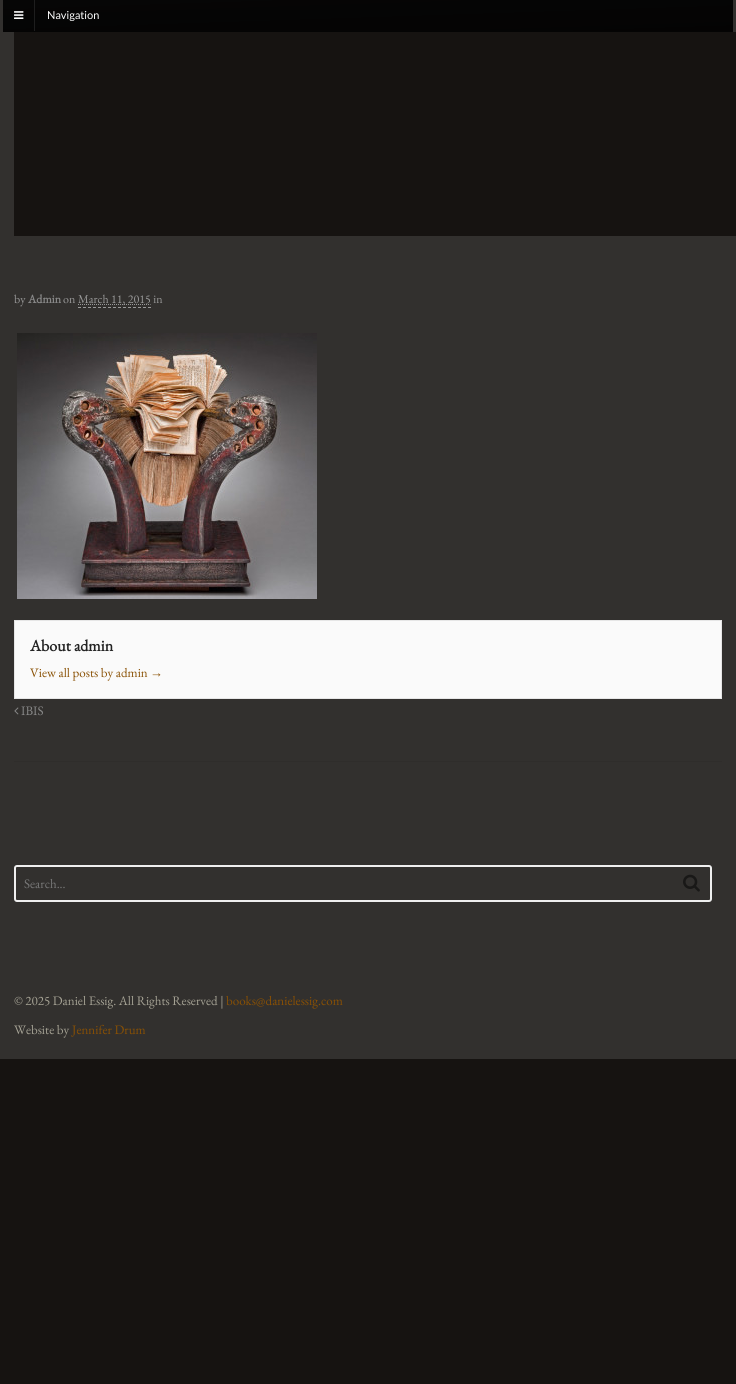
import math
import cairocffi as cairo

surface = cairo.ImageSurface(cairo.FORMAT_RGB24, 736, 1384)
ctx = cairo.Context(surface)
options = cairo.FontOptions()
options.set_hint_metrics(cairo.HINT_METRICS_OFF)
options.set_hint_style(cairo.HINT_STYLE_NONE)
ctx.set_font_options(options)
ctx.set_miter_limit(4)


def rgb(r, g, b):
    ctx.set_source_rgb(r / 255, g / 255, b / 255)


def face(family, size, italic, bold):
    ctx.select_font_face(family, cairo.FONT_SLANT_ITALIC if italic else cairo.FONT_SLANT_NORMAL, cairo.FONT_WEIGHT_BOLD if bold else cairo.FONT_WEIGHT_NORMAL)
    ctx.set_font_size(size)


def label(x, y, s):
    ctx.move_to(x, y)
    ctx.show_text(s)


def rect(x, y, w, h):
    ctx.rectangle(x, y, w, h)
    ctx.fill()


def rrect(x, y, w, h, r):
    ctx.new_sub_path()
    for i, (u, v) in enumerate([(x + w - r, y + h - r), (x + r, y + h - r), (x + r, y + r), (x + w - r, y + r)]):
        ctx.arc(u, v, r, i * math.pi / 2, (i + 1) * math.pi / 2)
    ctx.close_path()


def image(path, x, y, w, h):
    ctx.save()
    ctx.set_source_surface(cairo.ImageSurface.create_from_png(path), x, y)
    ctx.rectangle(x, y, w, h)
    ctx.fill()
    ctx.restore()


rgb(22, 19, 17)
ctx.paint()
rgb(50, 48, 46)
rect(0, 0, 736, 1059)
gradient = cairo.LinearGradient(367, -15, 369, 46)
gradient.add_color_stop_rgba(0, 0.024, 0.024, 0.024, 1)
gradient.add_color_stop_rgba(1, 0.016, 0.012, 0.012, 1)
ctx.set_source(gradient)
rect(3, 0, 730, 31)
rgb(4, 4, 4)
rect(3, 31, 730, 1)
rgb(30, 30, 30)
rect(34, 0, 1, 31)
image('image0.png', 14, 11, 10, 8)
face('Lato', 11, 0, 0)
rgb(255, 255, 255)
label(47, 19, 'Navigation')
rgb(22, 19, 17)
rect(14, 32, 722, 204)
face('EB Garamond', 12, 0, 0)
rgb(153, 153, 153)
label(14, 303, 'by')
face('EB Garamond', 12, 0, 1)
rgb(136, 136, 136)
label(28, 303, 'Admin')
face('EB Garamond', 12, 0, 0)
rgb(153, 153, 153)
label(63, 303, 'on')
ctx.new_path()
ctx.move_to(78, 304.5)
ctx.line_to(150.5, 304.5)
ctx.set_line_width(1)
ctx.set_dash([1, 1])
ctx.stroke()
label(78, 303, 'March 11, 2015 in')
ctx.new_path()
ctx.move_to(78, 307.5)
ctx.line_to(151, 307.5)
ctx.set_dash([3, 2])
ctx.stroke()
image('image1.png', 17, 333, 300, 266)
rgb(250, 250, 250)
ctx.rectangle(14.5, 620.5, 707, 78)
ctx.fill_preserve()
rgb(230, 230, 230)
ctx.set_dash([])
ctx.stroke()
face('EB Garamond', 16, 0, 1)
rgb(34, 34, 34)
label(30, 651, 'About admin')
face('EB Garamond', 13, 0, 0)
rgb(137, 80, 3)
label(30, 677, 'View all posts by admin')
face('Liberation Sans', 13, 0, 0)
label(150, 677, '→')
image('image2.png', 14, 707, 5, 8)
face('EB Garamond', 13, 0, 0)
rgb(136, 136, 136)
label(21, 715, 'IBIS')
rgb(47, 45, 43)
rect(14, 761, 708, 1)
rrect(15, 866, 696, 35, 2)
rgb(239, 239, 239)
ctx.set_line_width(2)
ctx.stroke()
rgb(119, 119, 119)
label(24, 888, 'Search...')
image('image3.png', 683, 874, 17, 18)
rgb(165, 162, 148)
label(14, 1005, '© 2025 Daniel Essig. All Rights Reserved |')
rgb(137, 80, 3)
label(226, 1005, 'books@danielessig.com')
rgb(165, 162, 148)
label(14, 1034, 'Website by')
rgb(137, 80, 3)
label(72, 1034, 'Jennifer Drum')
surface.write_to_png('render.png')
